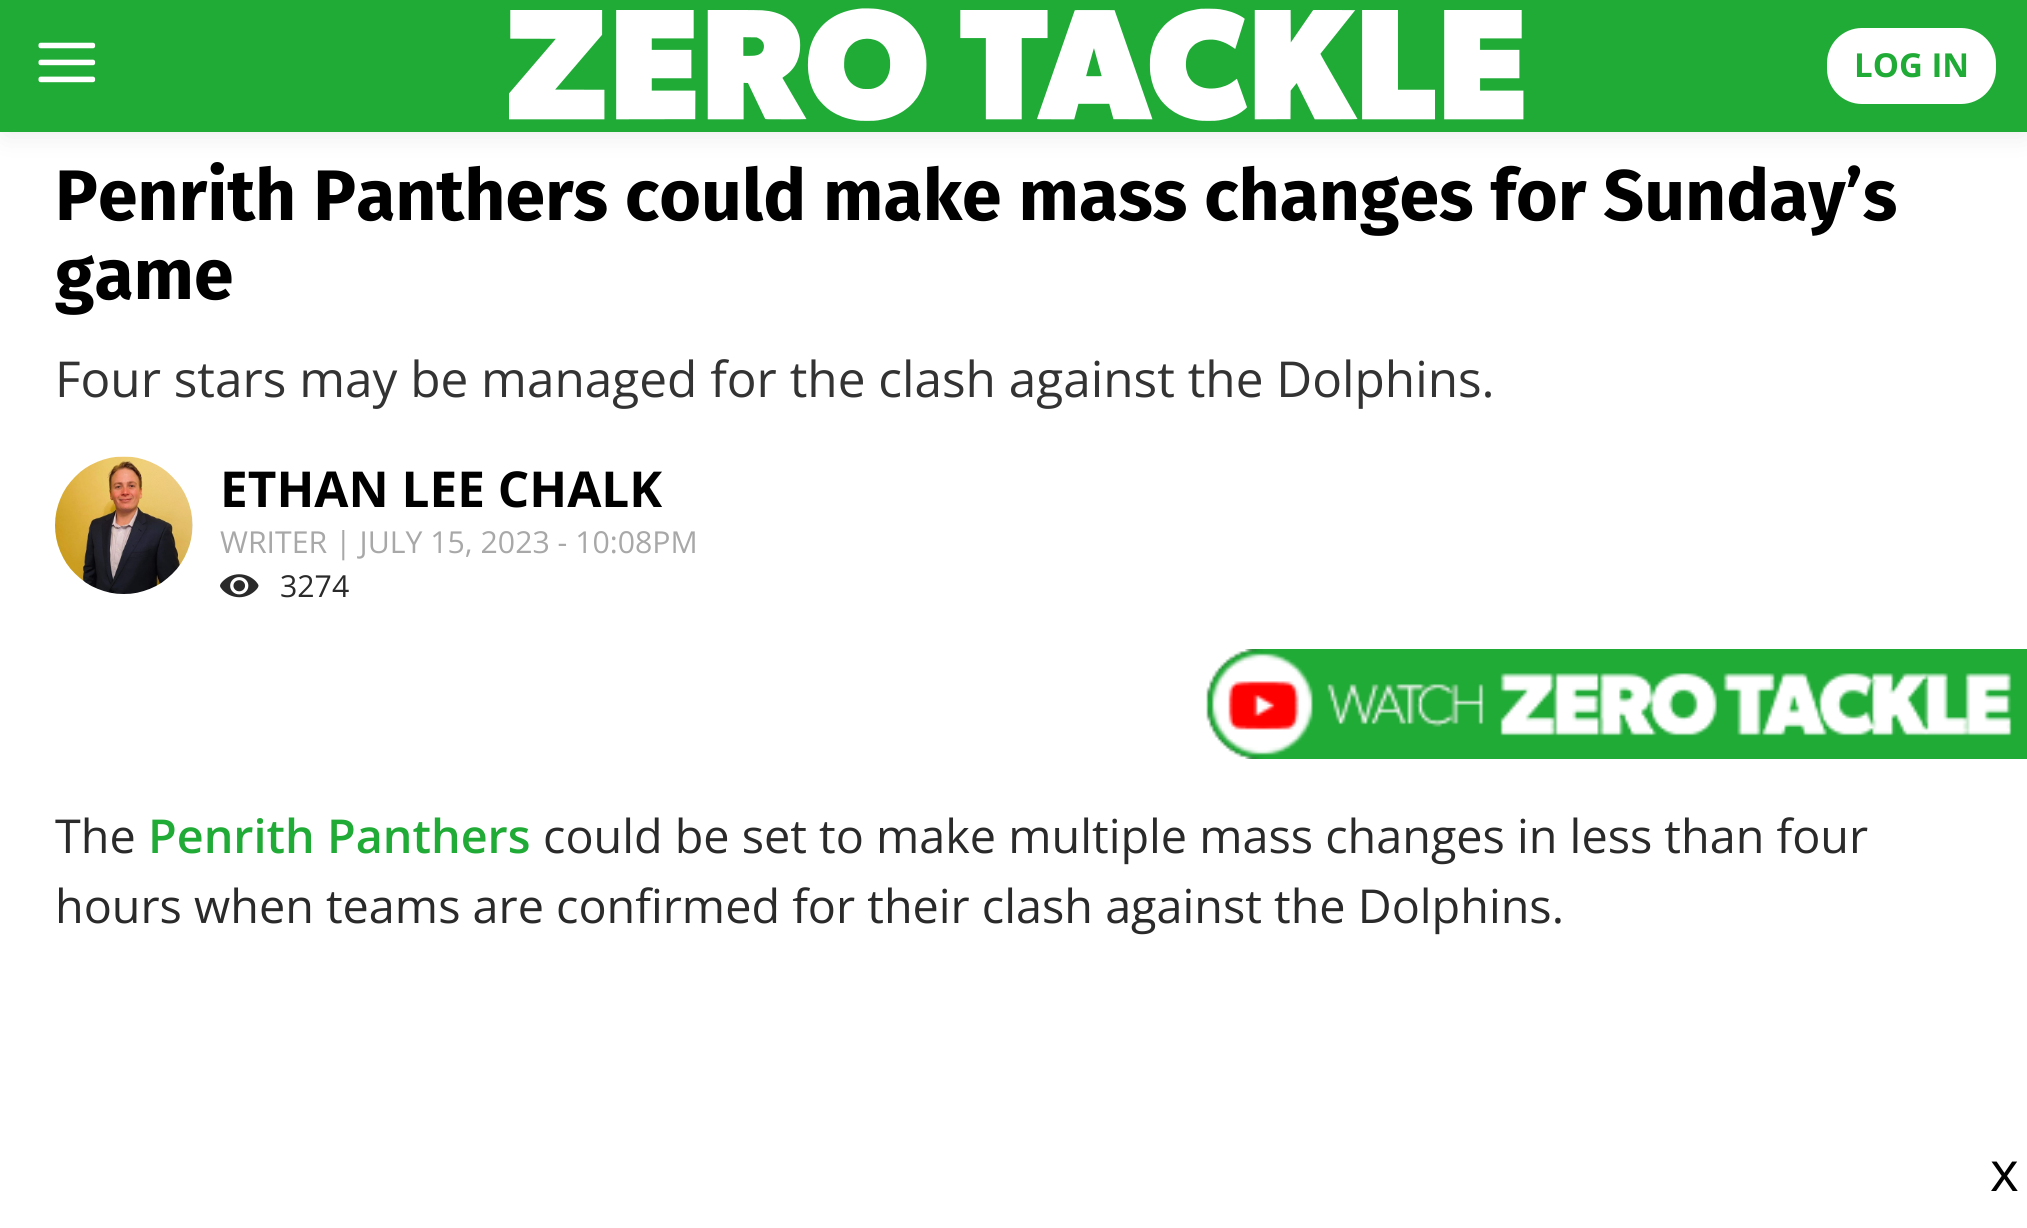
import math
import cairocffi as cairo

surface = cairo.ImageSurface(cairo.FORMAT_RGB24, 2027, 1228)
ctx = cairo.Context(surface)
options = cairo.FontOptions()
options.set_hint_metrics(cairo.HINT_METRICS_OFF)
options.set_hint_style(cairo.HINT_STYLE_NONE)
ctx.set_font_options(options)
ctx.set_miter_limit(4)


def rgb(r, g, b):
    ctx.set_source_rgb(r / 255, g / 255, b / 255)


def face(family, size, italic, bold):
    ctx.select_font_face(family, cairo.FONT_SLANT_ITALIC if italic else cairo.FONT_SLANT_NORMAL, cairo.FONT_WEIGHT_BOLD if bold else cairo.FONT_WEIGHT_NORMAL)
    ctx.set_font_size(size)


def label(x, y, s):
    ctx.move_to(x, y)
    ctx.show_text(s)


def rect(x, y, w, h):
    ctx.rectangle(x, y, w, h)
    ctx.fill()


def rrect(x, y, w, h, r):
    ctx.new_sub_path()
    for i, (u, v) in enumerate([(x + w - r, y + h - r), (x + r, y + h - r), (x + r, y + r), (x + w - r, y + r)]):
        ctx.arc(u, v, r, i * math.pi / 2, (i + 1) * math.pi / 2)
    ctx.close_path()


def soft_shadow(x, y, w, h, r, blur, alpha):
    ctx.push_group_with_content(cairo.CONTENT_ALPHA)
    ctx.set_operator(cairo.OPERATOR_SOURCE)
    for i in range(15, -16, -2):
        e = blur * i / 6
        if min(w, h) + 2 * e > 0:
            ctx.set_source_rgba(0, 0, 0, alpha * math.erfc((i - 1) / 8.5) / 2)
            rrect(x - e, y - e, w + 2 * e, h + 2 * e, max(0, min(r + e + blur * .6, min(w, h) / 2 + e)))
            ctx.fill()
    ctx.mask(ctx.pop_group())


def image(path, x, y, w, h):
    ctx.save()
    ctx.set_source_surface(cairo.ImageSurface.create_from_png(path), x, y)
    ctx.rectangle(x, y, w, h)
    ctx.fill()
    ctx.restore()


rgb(255, 255, 255)
ctx.paint()
rgb(0, 0, 0)
soft_shadow(6, 11, 2018, 121, 0, 14, 0.1)
rgb(32, 170, 54)
rect(0, 0, 2027, 132)
image('image0.png', 38, 42, 58, 41)
image('image1.png', 509, 8, 1015, 113)
rgb(255, 255, 255)
rrect(1824, 25, 175, 82, 38)
ctx.fill_preserve()
rgb(32, 170, 54)
ctx.set_line_width(6)
ctx.stroke()
face('Open Sans', 33, 0, 1)
label(1854, 77, 'LOG IN')
face('Fira Sans', 71.5, 0, 1)
rgb(0, 0, 0)
label(55, 220, 'Penrith Panthers could make mass changes for Sunday’s')
label(55, 299, 'game')
face('Open Sans', 49.5, 0, 0)
rgb(51, 51, 51)
label(55, 397, 'Four stars may be managed for the clash against the Dolphins.')
image('image2.png', 55, 456, 138, 138)
face('Open Sans', 49.5, 0, 1)
rgb(0, 0, 0)
label(220, 507, 'ETHAN LEE CHALK')
face('Open Sans', 30.25, 0, 0)
rgb(168, 168, 168)
label(220, 553, 'WRITER | JULY 15, 2023 - 10:08PM')
image('image3.png', 220, 574, 39, 24)
rgb(42, 42, 42)
label(280, 597, '3274')
image('image4.png', 1206, 649, 821, 110)
face('Open Sans', 46.75, 0, 0)
label(55, 853, 'The')
face('Open Sans SemiBold', 46.75, 0, 0)
rgb(32, 170, 54)
label(148, 853, 'Penrith Panthers')
face('Open Sans', 46.75, 0, 0)
rgb(42, 42, 42)
label(543, 853, 'could be set to make multiple mass changes in less than four')
label(55, 923, 'hours when teams are confirmed for their clash against the Dolphins.')
face('Open Sans', 55, 0, 0)
rgb(0, 0, 0)
label(1990, 1191, 'x')
surface.write_to_png('render.png')
